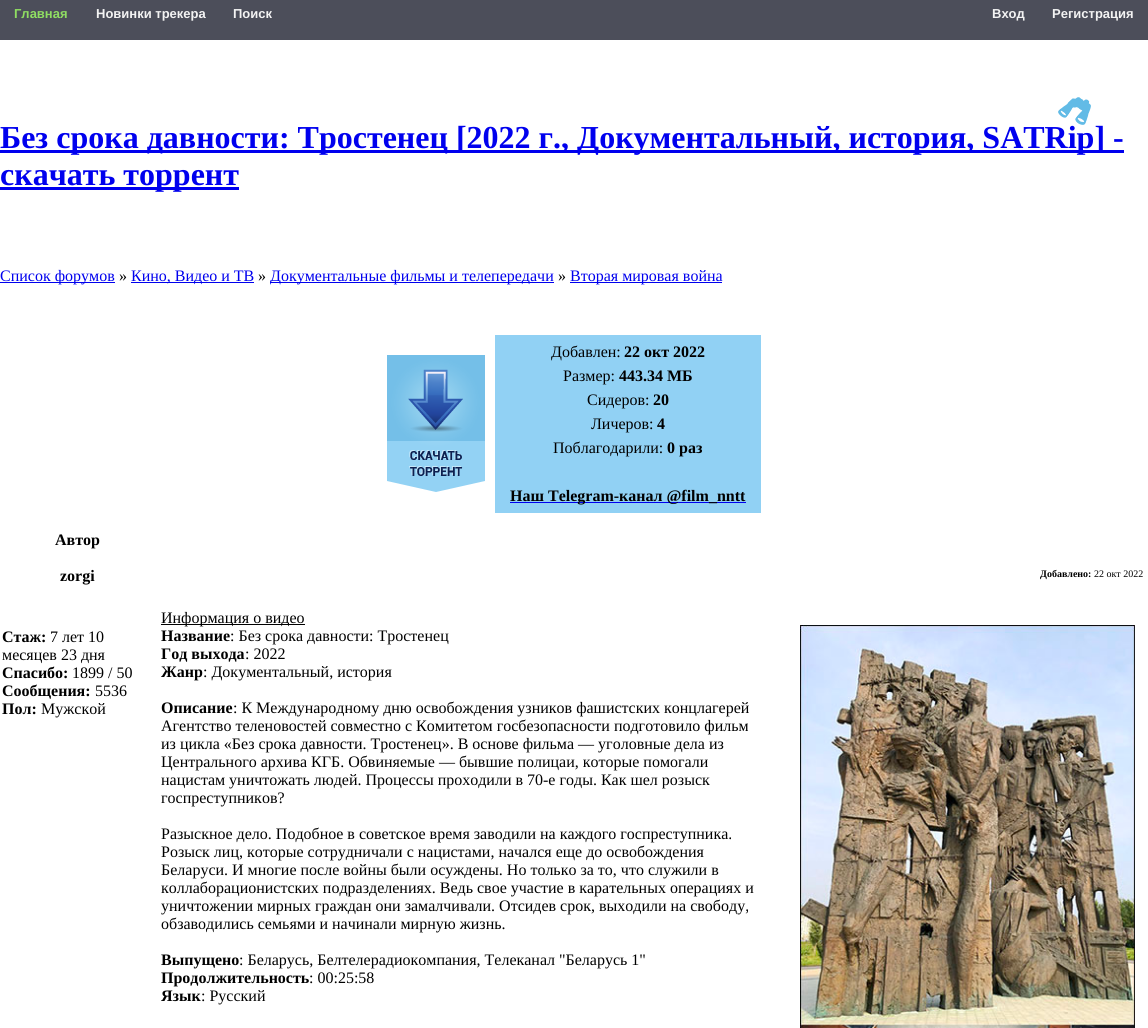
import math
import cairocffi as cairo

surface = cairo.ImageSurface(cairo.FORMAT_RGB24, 1148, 1028)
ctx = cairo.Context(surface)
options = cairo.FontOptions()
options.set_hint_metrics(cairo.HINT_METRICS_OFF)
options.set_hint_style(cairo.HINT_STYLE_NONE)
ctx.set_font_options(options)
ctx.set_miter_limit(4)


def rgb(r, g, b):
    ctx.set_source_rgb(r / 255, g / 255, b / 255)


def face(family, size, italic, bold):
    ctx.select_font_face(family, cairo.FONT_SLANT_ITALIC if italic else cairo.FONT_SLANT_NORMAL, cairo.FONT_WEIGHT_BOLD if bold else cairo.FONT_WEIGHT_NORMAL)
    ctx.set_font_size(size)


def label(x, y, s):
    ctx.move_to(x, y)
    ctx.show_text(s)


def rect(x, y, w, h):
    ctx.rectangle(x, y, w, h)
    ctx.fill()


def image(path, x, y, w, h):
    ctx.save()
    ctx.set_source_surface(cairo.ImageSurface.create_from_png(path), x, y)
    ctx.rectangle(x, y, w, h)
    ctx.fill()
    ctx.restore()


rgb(255, 255, 255)
ctx.paint()
rgb(76, 78, 90)
rect(0, 0, 1148, 40)
face('Liberation Sans', 13, 0, 1)
rgb(143, 222, 98)
label(14, 18, 'Главная')
rgb(243, 243, 243)
label(96, 18, 'Новинки трекера')
label(233, 18, 'Поиск')
label(992, 18, 'Вход')
label(1052, 18, 'Регистрация')
image('image0.png', 1058, 97, 33, 28)
rgb(0, 0, 238)
rect(0, 150, 1124, 3)
face('Liberation Serif', 32, 0, 1)
label(0, 148, 'Без срока давности: Тростенец [2022 г., Документальный, история, SATRip] -')
rect(0, 187, 239, 3)
label(0, 185, 'скачать торрент')
rect(0, 282, 115, 1)
face('Liberation Serif', 16, 0, 0)
label(0, 281, 'Список форумов')
rgb(0, 0, 0)
label(119, 281, '»')
rgb(0, 0, 238)
rect(131, 282, 123, 1)
label(131, 281, 'Кино, Видео и ТВ')
rgb(0, 0, 0)
label(258, 281, '»')
rgb(0, 0, 238)
rect(270, 282, 284, 1)
label(270, 281, 'Документальные фильмы и телепередачи')
rgb(0, 0, 0)
label(558, 281, '»')
rgb(0, 0, 238)
rect(570, 282, 152, 1)
label(570, 281, 'Вторая мировая война')
image('image1.png', 387, 355, 98, 137)
rgb(145, 209, 244)
rect(495, 335, 266, 178)
rgb(0, 0, 0)
label(551, 357, 'Добавлен:')
face('Liberation Serif', 16, 0, 1)
label(624, 357, '22 окт 2022')
face('Liberation Serif', 16, 0, 0)
label(563, 381, 'Размер:')
face('Liberation Serif', 16, 0, 1)
label(619, 381, '443.34 МБ')
face('Liberation Serif', 16, 0, 0)
label(587, 405, 'Сидеров:')
face('Liberation Serif', 16, 0, 1)
label(653, 405, '20')
face('Liberation Serif', 16, 0, 0)
label(591, 429, 'Личеров:')
face('Liberation Serif', 16, 0, 1)
label(657, 429, '4')
face('Liberation Serif', 16, 0, 0)
label(553, 453, 'Поблагодарили:')
face('Liberation Serif', 16, 0, 1)
label(667, 453, '0 раз')
rgb(0, 0, 238)
rect(510, 502, 236, 1)
rgb(0, 0, 0)
label(510, 501, 'Наш Telegram-канал @film_nntt')
label(55, 545, 'Автор')
label(60, 581, 'zorgi')
face('Liberation Serif', 10, 0, 1)
label(1040, 577, 'Добавлено:')
face('Liberation Serif', 10, 0, 0)
label(1094, 577, '22 окт 2022')
face('Liberation Serif', 16, 0, 1)
label(2, 642, 'Стаж:')
face('Liberation Serif', 16, 0, 0)
label(50, 642, '7 лет 10')
label(2, 660, 'месяцев 23 дня')
face('Liberation Serif', 16, 0, 1)
label(2, 678, 'Спасибо:')
face('Liberation Serif', 16, 0, 0)
label(72, 678, '1899 / 50')
face('Liberation Serif', 16, 0, 1)
label(2, 696, 'Сообщения:')
face('Liberation Serif', 16, 0, 0)
label(95, 696, '5536')
face('Liberation Serif', 16, 0, 1)
label(2, 714, 'Пол:')
face('Liberation Serif', 16, 0, 0)
label(41, 714, 'Мужской')
rect(161, 624, 144, 1)
label(161, 623, 'Информация о видео')
face('Liberation Serif', 16, 0, 1)
label(161, 641, 'Название')
face('Liberation Serif', 16, 0, 0)
label(230, 641, ': Без срока давности: Тростенец')
image('image2.png', 800, 625, 335, 403)
face('Liberation Serif', 16, 0, 1)
label(161, 659, 'Год выхода')
face('Liberation Serif', 16, 0, 0)
label(245, 659, ': 2022')
face('Liberation Serif', 16, 0, 1)
label(161, 677, 'Жанр')
face('Liberation Serif', 16, 0, 0)
label(203, 677, ': Документальный, история')
face('Liberation Serif', 16, 0, 1)
label(161, 713, 'Описание')
face('Liberation Serif', 16, 0, 0)
label(233, 713, ': К Международному дню освобождения узников фашистских концлагерей')
label(161, 731, 'Агентство теленовостей совместно с Комитетом госбезопасности подготовило фильм')
label(161, 749, 'из цикла «Без срока давности. Тростенец». В основе фильма — уголовные дела из')
label(161, 767, 'Центрального архива КГБ. Обвиняемые — бывшие полицаи, которые помогали')
label(161, 785, 'нацистам уничтожать людей. Процессы проходили в 70-е годы. Как шел розыск')
label(161, 803, 'госпреступников?')
label(161, 839, 'Разыскное дело. Подобное в советское время заводили на каждого госпреступника.')
label(161, 857, 'Розыск лиц, которые сотрудничали с нацистами, начался еще до освобождения')
label(161, 875, 'Беларуси. И многие после войны были осуждены. Но только за то, что служили в')
label(161, 893, 'коллаборационистских подразделениях. Ведь свое участие в карательных операциях и')
label(161, 911, 'уничтожении мирных граждан они замалчивали. Отсидев срок, выходили на свободу,')
label(161, 929, 'обзаводились семьями и начинали мирную жизнь.')
face('Liberation Serif', 16, 0, 1)
label(161, 965, 'Выпущено')
face('Liberation Serif', 16, 0, 0)
label(239, 965, ': Беларусь, Белтелерадиокомпания, Телеканал "Беларусь 1"')
face('Liberation Serif', 16, 0, 1)
label(161, 983, 'Продолжительность')
face('Liberation Serif', 16, 0, 0)
label(309, 983, ': 00:25:58')
face('Liberation Serif', 16, 0, 1)
label(161, 1001, 'Язык')
face('Liberation Serif', 16, 0, 0)
label(201, 1001, ': Русский')
surface.write_to_png('render.png')
